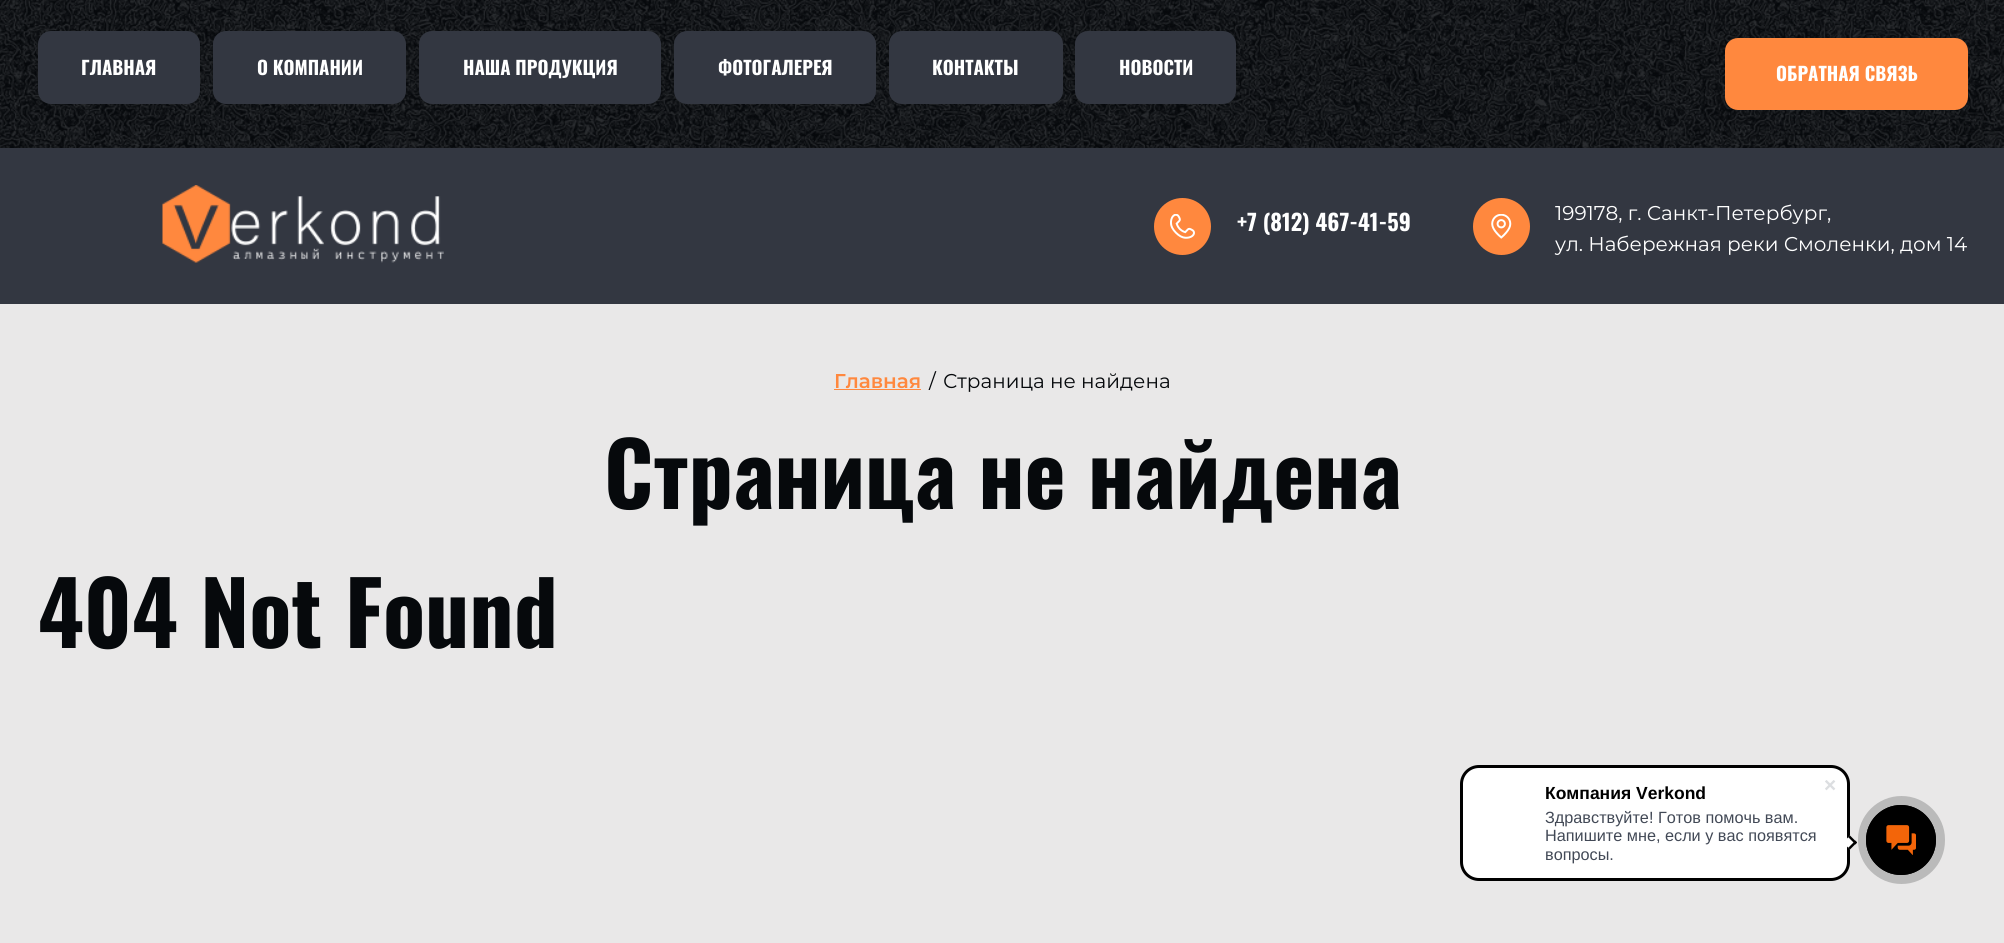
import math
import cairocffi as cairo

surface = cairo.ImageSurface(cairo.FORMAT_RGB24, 2004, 943)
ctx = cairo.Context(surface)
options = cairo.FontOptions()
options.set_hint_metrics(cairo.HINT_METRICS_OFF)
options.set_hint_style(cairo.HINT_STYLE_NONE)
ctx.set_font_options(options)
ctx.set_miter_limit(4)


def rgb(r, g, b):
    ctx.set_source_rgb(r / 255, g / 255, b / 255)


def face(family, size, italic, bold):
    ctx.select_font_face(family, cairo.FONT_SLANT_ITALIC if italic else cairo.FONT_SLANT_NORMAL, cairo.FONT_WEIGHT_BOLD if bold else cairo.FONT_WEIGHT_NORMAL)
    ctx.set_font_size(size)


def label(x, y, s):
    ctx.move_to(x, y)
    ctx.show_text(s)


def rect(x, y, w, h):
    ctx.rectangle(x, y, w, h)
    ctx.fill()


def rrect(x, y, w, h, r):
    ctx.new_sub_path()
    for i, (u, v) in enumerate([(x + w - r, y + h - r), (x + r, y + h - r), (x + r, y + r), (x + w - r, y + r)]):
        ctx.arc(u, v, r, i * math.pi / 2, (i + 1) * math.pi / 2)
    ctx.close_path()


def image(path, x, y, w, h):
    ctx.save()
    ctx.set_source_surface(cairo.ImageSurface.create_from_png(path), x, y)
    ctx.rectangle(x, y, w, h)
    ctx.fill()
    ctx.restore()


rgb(233, 232, 232)
ctx.paint()
image('image0.png', 0, 0, 2004, 148)
rgb(51, 55, 65)
rrect(38, 31, 162, 73, 13)
ctx.fill()
face('Oswald', 18.75, 0, 1)
rgb(255, 255, 255)
label(81, 75, 'ГЛАВНАЯ')
rgb(51, 55, 65)
rrect(213, 31, 193, 73, 13)
ctx.fill()
rgb(255, 255, 255)
label(257, 75, 'О КОМПАНИИ')
rgb(51, 55, 65)
rrect(419, 31, 242, 73, 13)
ctx.fill()
rgb(255, 255, 255)
label(463, 75, 'НАША ПРОДУКЦИЯ')
rgb(51, 55, 65)
rrect(674, 31, 202, 73, 13)
ctx.fill()
rgb(255, 255, 255)
label(718, 75, 'ФОТОГАЛЕРЕЯ')
rgb(51, 55, 65)
rrect(889, 31, 174, 73, 13)
ctx.fill()
rgb(255, 255, 255)
label(932, 75, 'КОНТАКТЫ')
rgb(51, 55, 65)
rrect(1075, 31, 161, 73, 13)
ctx.fill()
rgb(255, 255, 255)
label(1119, 75, 'НОВОСТИ')
rgb(255, 136, 62)
rrect(1725, 38, 243, 72, 13)
ctx.fill()
rgb(255, 255, 255)
label(1776, 81, 'ОБРАТНАЯ СВЯЗЬ')
rgb(51, 55, 65)
rect(0, 148, 2004, 156)
image('image1.png', 162, 185, 282, 78)
rgb(255, 136, 62)
ctx.arc(1182.5, 226.5, 28.5, 0, 2 * math.pi)
ctx.fill()
image('image2.png', 1170, 214, 25, 25)
face('Oswald', 22.5, 0, 1)
rgb(255, 255, 255)
label(1237, 231, '+7 (812) 467-41-59')
rgb(255, 136, 62)
ctx.new_path()
ctx.arc(1501.5, 226.5, 28.5, 0, 2 * math.pi)
ctx.fill()
image('image3.png', 1491, 214, 21, 25)
face('Montserrat', 20, 0, 0)
rgb(255, 255, 255)
label(1555, 220, '199178, г. Санкт-Петербург,')
label(1555, 251, 'ул. Набережная реки Смоленки, дом 14')
face('Montserrat SemiBold', 20, 0, 0)
rgb(255, 136, 62)
label(834, 388, 'Главная')
rect(834, 389, 87, 1)
face('Montserrat', 20, 0, 0)
rgb(6, 9, 12)
label(929, 388, '/')
label(943, 388, 'Страница не найдена')
face('Oswald', 87.5, 0, 1)
label(604, 509, 'Страница не найдена')
label(38, 648, '404 Not Found')
rgb(255, 255, 255)
rrect(1461.5, 766.5, 387, 113, 17.5)
ctx.fill_preserve()
rgb(0, 0, 0)
ctx.set_line_width(3)
ctx.stroke()
face('Liberation Sans', 17.5, 0, 1)
label(1545, 799, 'Компания Verkond')
face('Liberation Sans', 16.25, 0, 0)
rgb(66, 73, 86)
label(1545, 823, 'Здравствуйте! Готов помочь вам.')
label(1545, 841, 'Напишите мне, если у вас появятся')
label(1545, 860, 'вопросы.')
image('image4.png', 1825, 780, 11, 11)
rgb(255, 255, 255)
ctx.new_path()
ctx.move_to(1843, 842.5)
ctx.line_to(1850, 835.5)
ctx.line_to(1857, 842.5)
ctx.line_to(1850, 849.5)
ctx.close_path()
ctx.fill()
rgb(0, 0, 0)
ctx.new_path()
ctx.move_to(1848, 837)
ctx.line_to(1850, 835.5)
ctx.line_to(1857, 842.5)
ctx.line_to(1855.5, 844.5)
ctx.close_path()
ctx.fill()
ctx.new_path()
ctx.move_to(1848, 848)
ctx.line_to(1855.5, 840.5)
ctx.line_to(1857, 842.5)
ctx.line_to(1850, 849.5)
ctx.close_path()
ctx.fill()
rgb(186, 186, 186)
rrect(1858, 796, 87, 88, 43.5)
ctx.fill()
ctx.arc(1901, 840, 34.5, 0, 2 * math.pi)
rgb(0, 0, 0)
ctx.set_line_width(1)
ctx.stroke()
ctx.arc(1901, 840, 35, 0, 2 * math.pi)
ctx.fill()
image('image5.png', 1886, 825, 30, 30)
surface.write_to_png('render.png')
